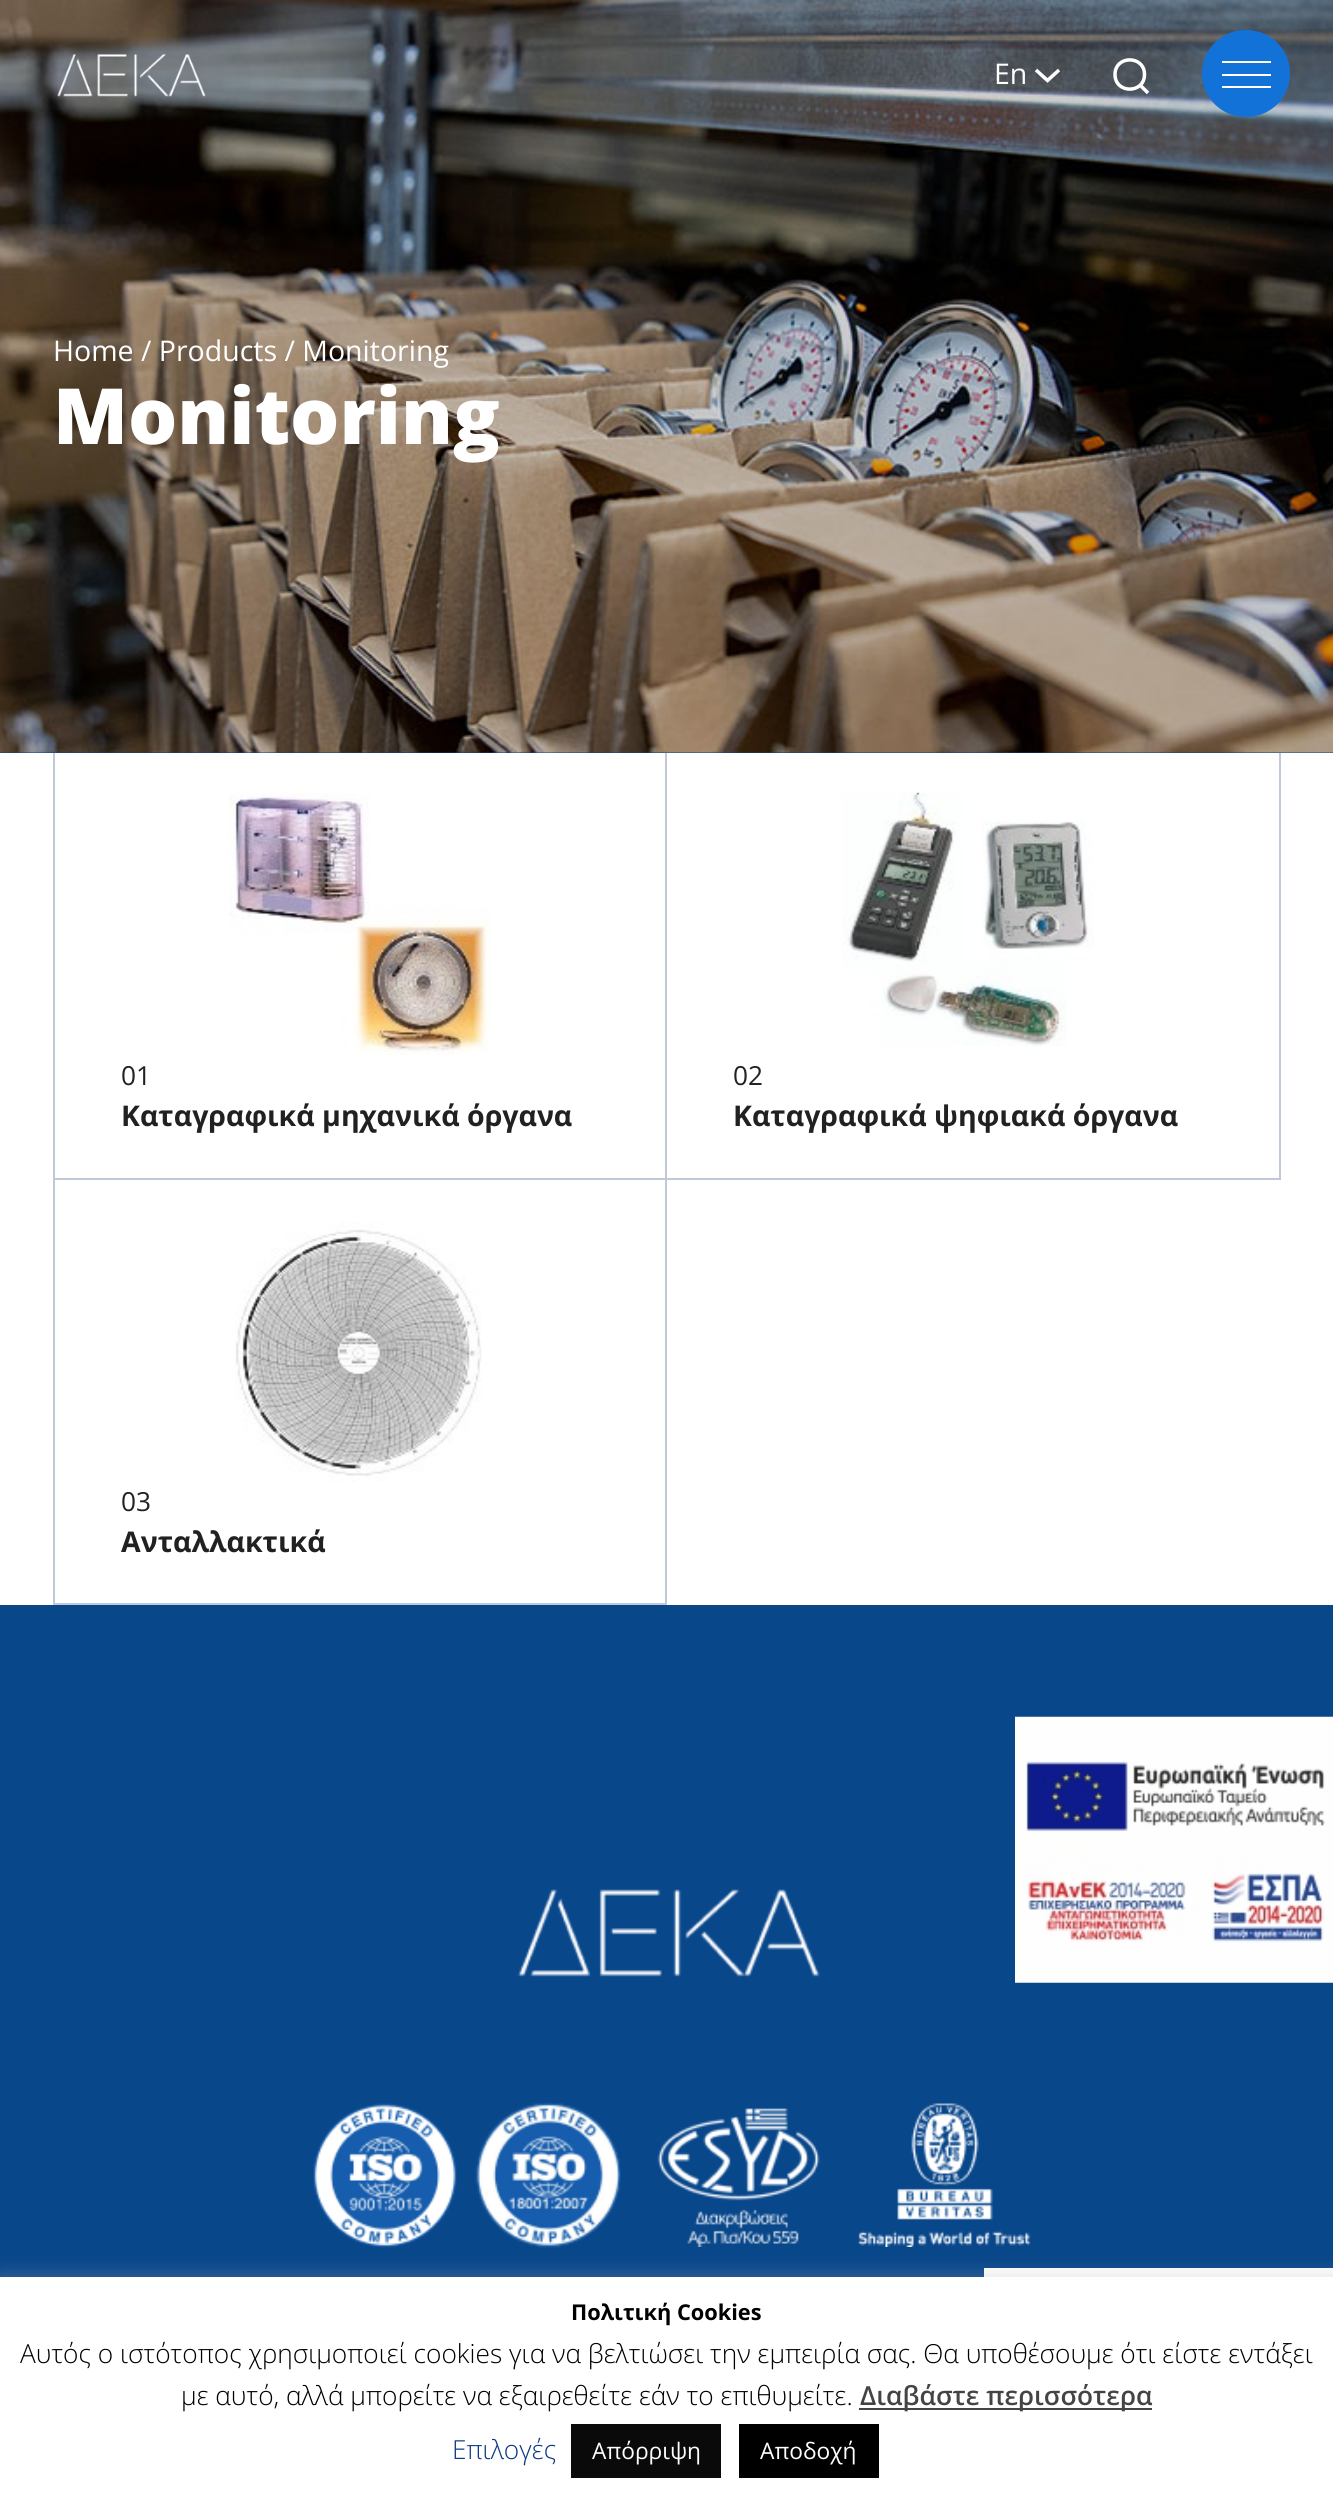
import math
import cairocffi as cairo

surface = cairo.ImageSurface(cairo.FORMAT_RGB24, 1333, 2507)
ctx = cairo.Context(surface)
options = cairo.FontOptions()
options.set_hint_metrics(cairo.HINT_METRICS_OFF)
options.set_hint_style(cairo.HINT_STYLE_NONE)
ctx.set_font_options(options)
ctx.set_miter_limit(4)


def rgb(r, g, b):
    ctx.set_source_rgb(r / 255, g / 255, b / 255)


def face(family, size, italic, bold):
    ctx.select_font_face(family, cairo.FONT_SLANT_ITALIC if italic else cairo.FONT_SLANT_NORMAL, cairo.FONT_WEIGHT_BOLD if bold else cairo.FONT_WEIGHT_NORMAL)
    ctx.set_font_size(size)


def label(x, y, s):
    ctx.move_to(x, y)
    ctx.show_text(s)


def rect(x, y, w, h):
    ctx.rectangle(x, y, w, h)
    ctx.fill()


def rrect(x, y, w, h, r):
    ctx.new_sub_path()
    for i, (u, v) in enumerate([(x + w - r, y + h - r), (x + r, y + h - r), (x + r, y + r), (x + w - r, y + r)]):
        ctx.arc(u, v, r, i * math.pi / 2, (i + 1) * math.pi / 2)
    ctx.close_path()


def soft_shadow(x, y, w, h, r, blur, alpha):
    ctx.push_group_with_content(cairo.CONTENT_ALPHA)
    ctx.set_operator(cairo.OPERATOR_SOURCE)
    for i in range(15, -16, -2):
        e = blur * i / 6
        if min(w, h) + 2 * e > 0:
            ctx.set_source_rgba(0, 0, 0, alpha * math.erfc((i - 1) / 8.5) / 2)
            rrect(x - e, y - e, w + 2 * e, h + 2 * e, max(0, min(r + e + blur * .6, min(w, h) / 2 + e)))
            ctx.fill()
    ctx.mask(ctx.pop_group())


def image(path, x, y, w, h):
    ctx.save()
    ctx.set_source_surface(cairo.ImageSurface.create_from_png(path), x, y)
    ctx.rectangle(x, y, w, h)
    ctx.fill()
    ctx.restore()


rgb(9, 71, 139)
ctx.paint()
image('image1.png', 0, 0, 1333, 753)
image('image0.png', 57, 54, 149, 43)
face('Open Sans', 28.5, 0, 0)
rgb(255, 255, 255)
label(994, 84, 'En')
ctx.new_path()
ctx.move_to(1059, 70)
ctx.line_to(1047.5, 80.5)
ctx.line_to(1036, 70)
ctx.set_line_width(3.5)
ctx.stroke()
ctx.new_path()
ctx.move_to(1148, 93)
ctx.line_to(1140, 85)
ctx.close_path()
ctx.move_to(1144.5, 74.5)
ctx.curve_to(1144.5, 94, 1115, 94, 1115, 74.5)
ctx.curve_to(1115, 55, 1144.5, 55, 1144.5, 74.5)
ctx.close_path()
ctx.set_line_cap(cairo.LINE_CAP_ROUND)
ctx.stroke()
rgb(19, 114, 216)
rrect(1202, 30, 88, 87, 43.5)
ctx.fill()
rgb(255, 255, 255)
rect(1222, 61, 49, 2)
rect(1222, 74, 49, 2)
rect(1222, 86, 49, 2)
label(53, 361, 'Home / Products / Monitoring')
face('Open Sans ExtraBold', 77.5, 0, 0)
label(53, 444, 'Monitoring')
rect(0, 753, 1333, 852)
rgb(192, 201, 215)
rect(665, 753, 2, 852)
rect(53, 1178, 614, 2)
rect(53, 753, 2, 427)
image('image2.png', 229, 793, 262, 262)
face('Open Sans', 26.25, 0, 0)
rgb(33, 33, 33)
label(121, 1085, '01')
face('Open Sans', 28.5, 0, 1)
label(121, 1126, 'Καταγραφικά μηχανικά όργανα')
rgb(192, 201, 215)
rect(1279, 753, 2, 427)
rect(667, 1178, 614, 2)
image('image3.png', 842, 792, 252, 255)
face('Open Sans', 26.25, 0, 0)
rgb(33, 33, 33)
label(733, 1085, '02')
face('Open Sans', 28.5, 0, 1)
label(733, 1126, 'Καταγραφικά ψηφιακά όργανα')
rgb(192, 201, 215)
rect(53, 1603, 614, 2)
rect(53, 1180, 2, 425)
image('image4.png', 235, 1222, 247, 260)
face('Open Sans', 26.25, 0, 0)
rgb(33, 33, 33)
label(121, 1511, '03')
face('Open Sans', 28.5, 0, 1)
label(121, 1552, 'Ανταλλακτικά')
image('image5.png', 1015, 1716, 318, 267)
image('image6.png', 517, 1889, 303, 88)
image('image7.png', 313, 2103, 144, 145)
image('image8.png', 475, 2102, 146, 146)
image('image9.png', 657, 2108, 163, 139)
image('image10.png', 857, 2103, 174, 144)
image('image11.png', 984, 2268, 349, 9)
rgb(172, 171, 171)
soft_shadow(0, 2275, 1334, 231, 0, 9, 0.3)
rgb(255, 255, 255)
rect(0, 2277, 1333, 230)
face('Open Sans', 21.75, 0, 1)
rgb(0, 0, 0)
label(571, 2320, 'Πολιτική Cookies')
face('Open Sans Light', 26.25, 0, 0)
label(20, 2363, 'Αυτός ο ιστότοπος χρησιμοποιεί cookies για να βελτιώσει την εμπειρία σας. Θα υποθέσουμε ότι είστε εντάξει')
label(181, 2405, 'με αυτό, αλλά μπορείτε να εξαιρεθείτε εάν το επιθυμείτε.')
rgb(68, 68, 68)
rect(859, 2408, 293, 2)
face('Open Sans SemiBold', 26.25, 0, 0)
label(860, 2405, 'Διαβάστε περισσότερα')
face('Open Sans Light', 26.25, 0, 0)
rgb(12, 55, 135)
label(452, 2459, 'Επιλογές')
rgb(10, 10, 10)
rect(571, 2424, 150, 54)
face('Open Sans', 22.75, 0, 0)
rgb(255, 255, 255)
label(592, 2459, 'Απόρριψη')
rgb(0, 0, 0)
rect(739, 2424, 140, 54)
rgb(255, 255, 255)
label(760, 2459, 'Αποδοχή')
surface.write_to_png('render.png')
